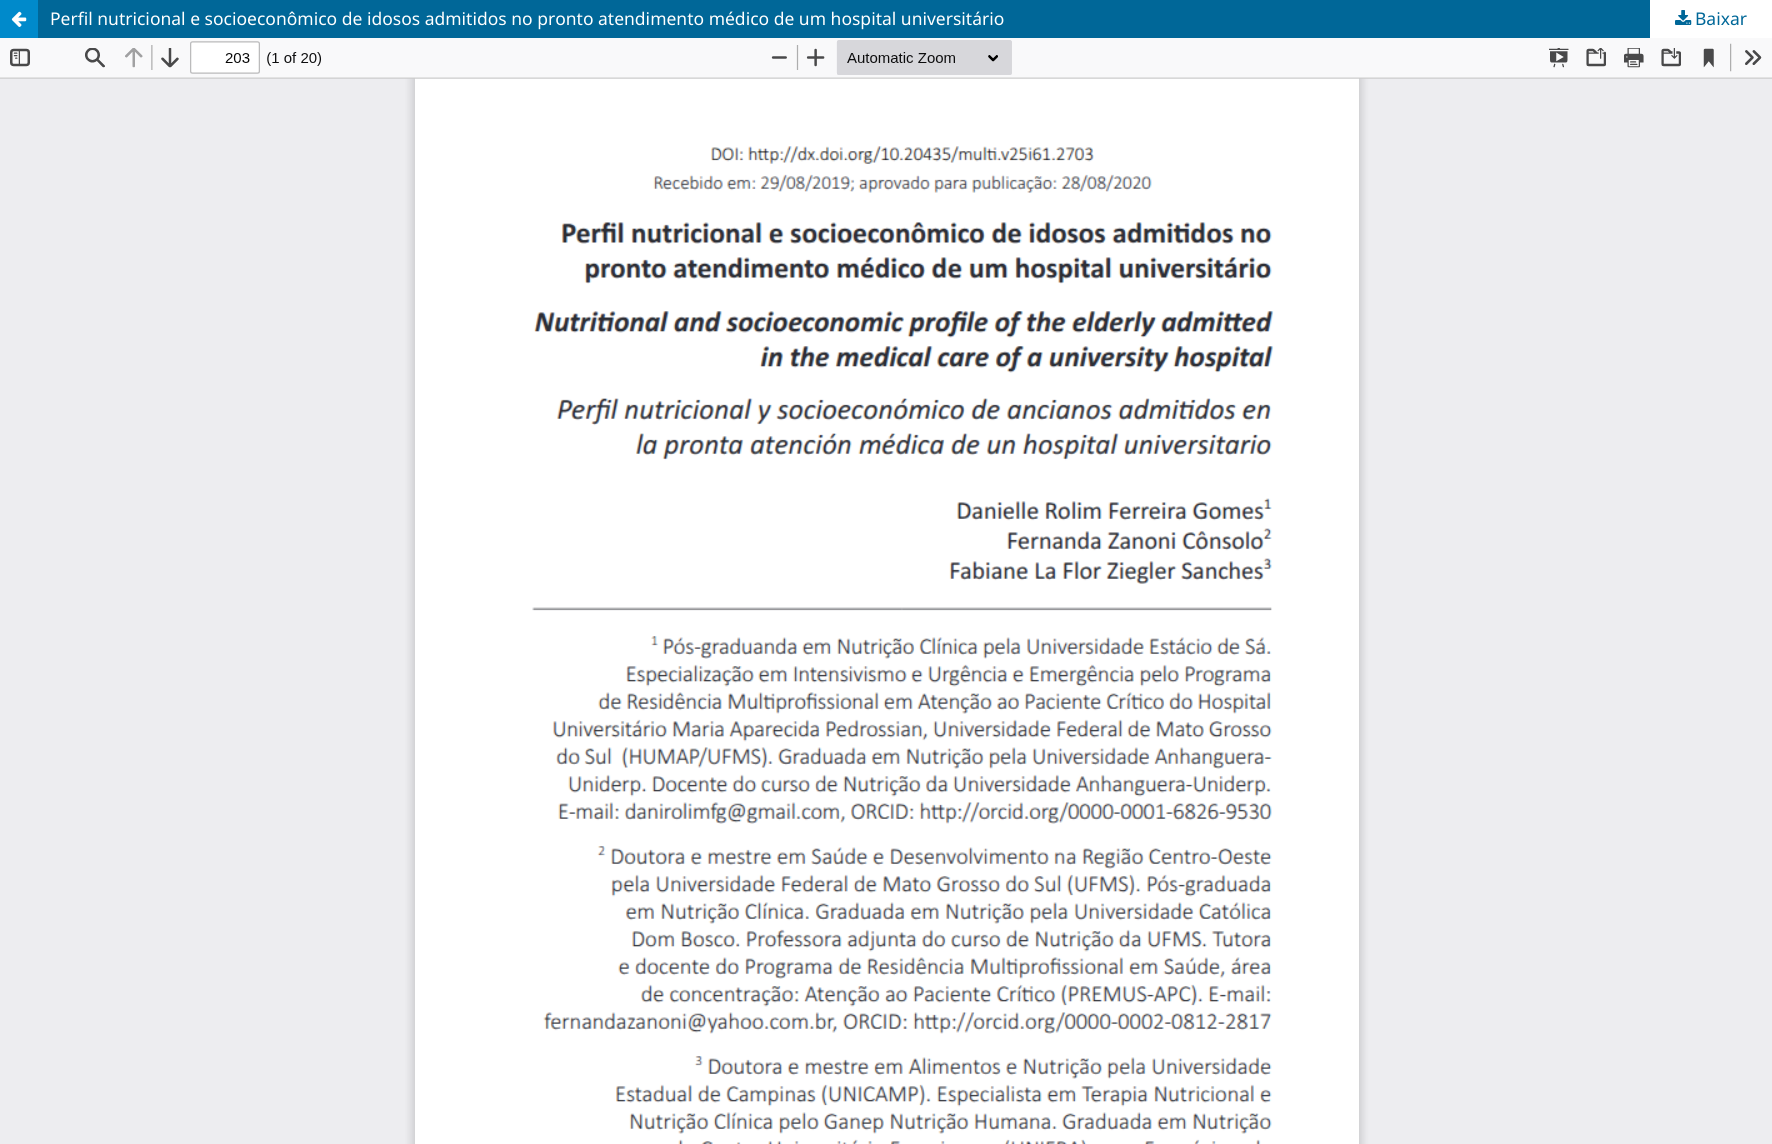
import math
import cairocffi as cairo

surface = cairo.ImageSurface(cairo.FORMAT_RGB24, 1772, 1144)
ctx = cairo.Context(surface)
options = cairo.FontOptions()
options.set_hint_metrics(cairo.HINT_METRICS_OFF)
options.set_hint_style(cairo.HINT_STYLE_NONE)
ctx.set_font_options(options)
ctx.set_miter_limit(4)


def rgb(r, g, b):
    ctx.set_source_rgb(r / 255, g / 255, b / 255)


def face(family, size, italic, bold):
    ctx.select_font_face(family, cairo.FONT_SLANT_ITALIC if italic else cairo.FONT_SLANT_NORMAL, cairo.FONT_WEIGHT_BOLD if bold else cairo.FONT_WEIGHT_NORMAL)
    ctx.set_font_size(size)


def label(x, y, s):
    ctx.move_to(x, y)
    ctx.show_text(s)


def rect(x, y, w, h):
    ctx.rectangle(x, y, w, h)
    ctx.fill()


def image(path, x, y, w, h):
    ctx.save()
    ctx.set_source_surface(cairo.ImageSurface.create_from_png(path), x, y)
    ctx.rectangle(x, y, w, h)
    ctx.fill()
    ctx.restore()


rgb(255, 255, 255)
ctx.paint()
rgb(0, 103, 152)
rect(38, 0, 1612, 38)
rgb(0, 138, 203)
rect(0, 0, 38, 38)
image('image0.png', 11, 11, 16, 16)
face('Noto Sans', 17.5, 0, 0)
rgb(255, 255, 255)
label(50, 25, 'Perfil nutricional e socioeconômico de idosos admitidos no pronto atendimento médico de um hospital universitário')
image('image1.png', 1675, 10, 17, 15)
rgb(0, 103, 152)
label(1695, 25, 'Baixar')
image('image2.png', 0, 38, 1772, 1106)
surface.write_to_png('render.png')
